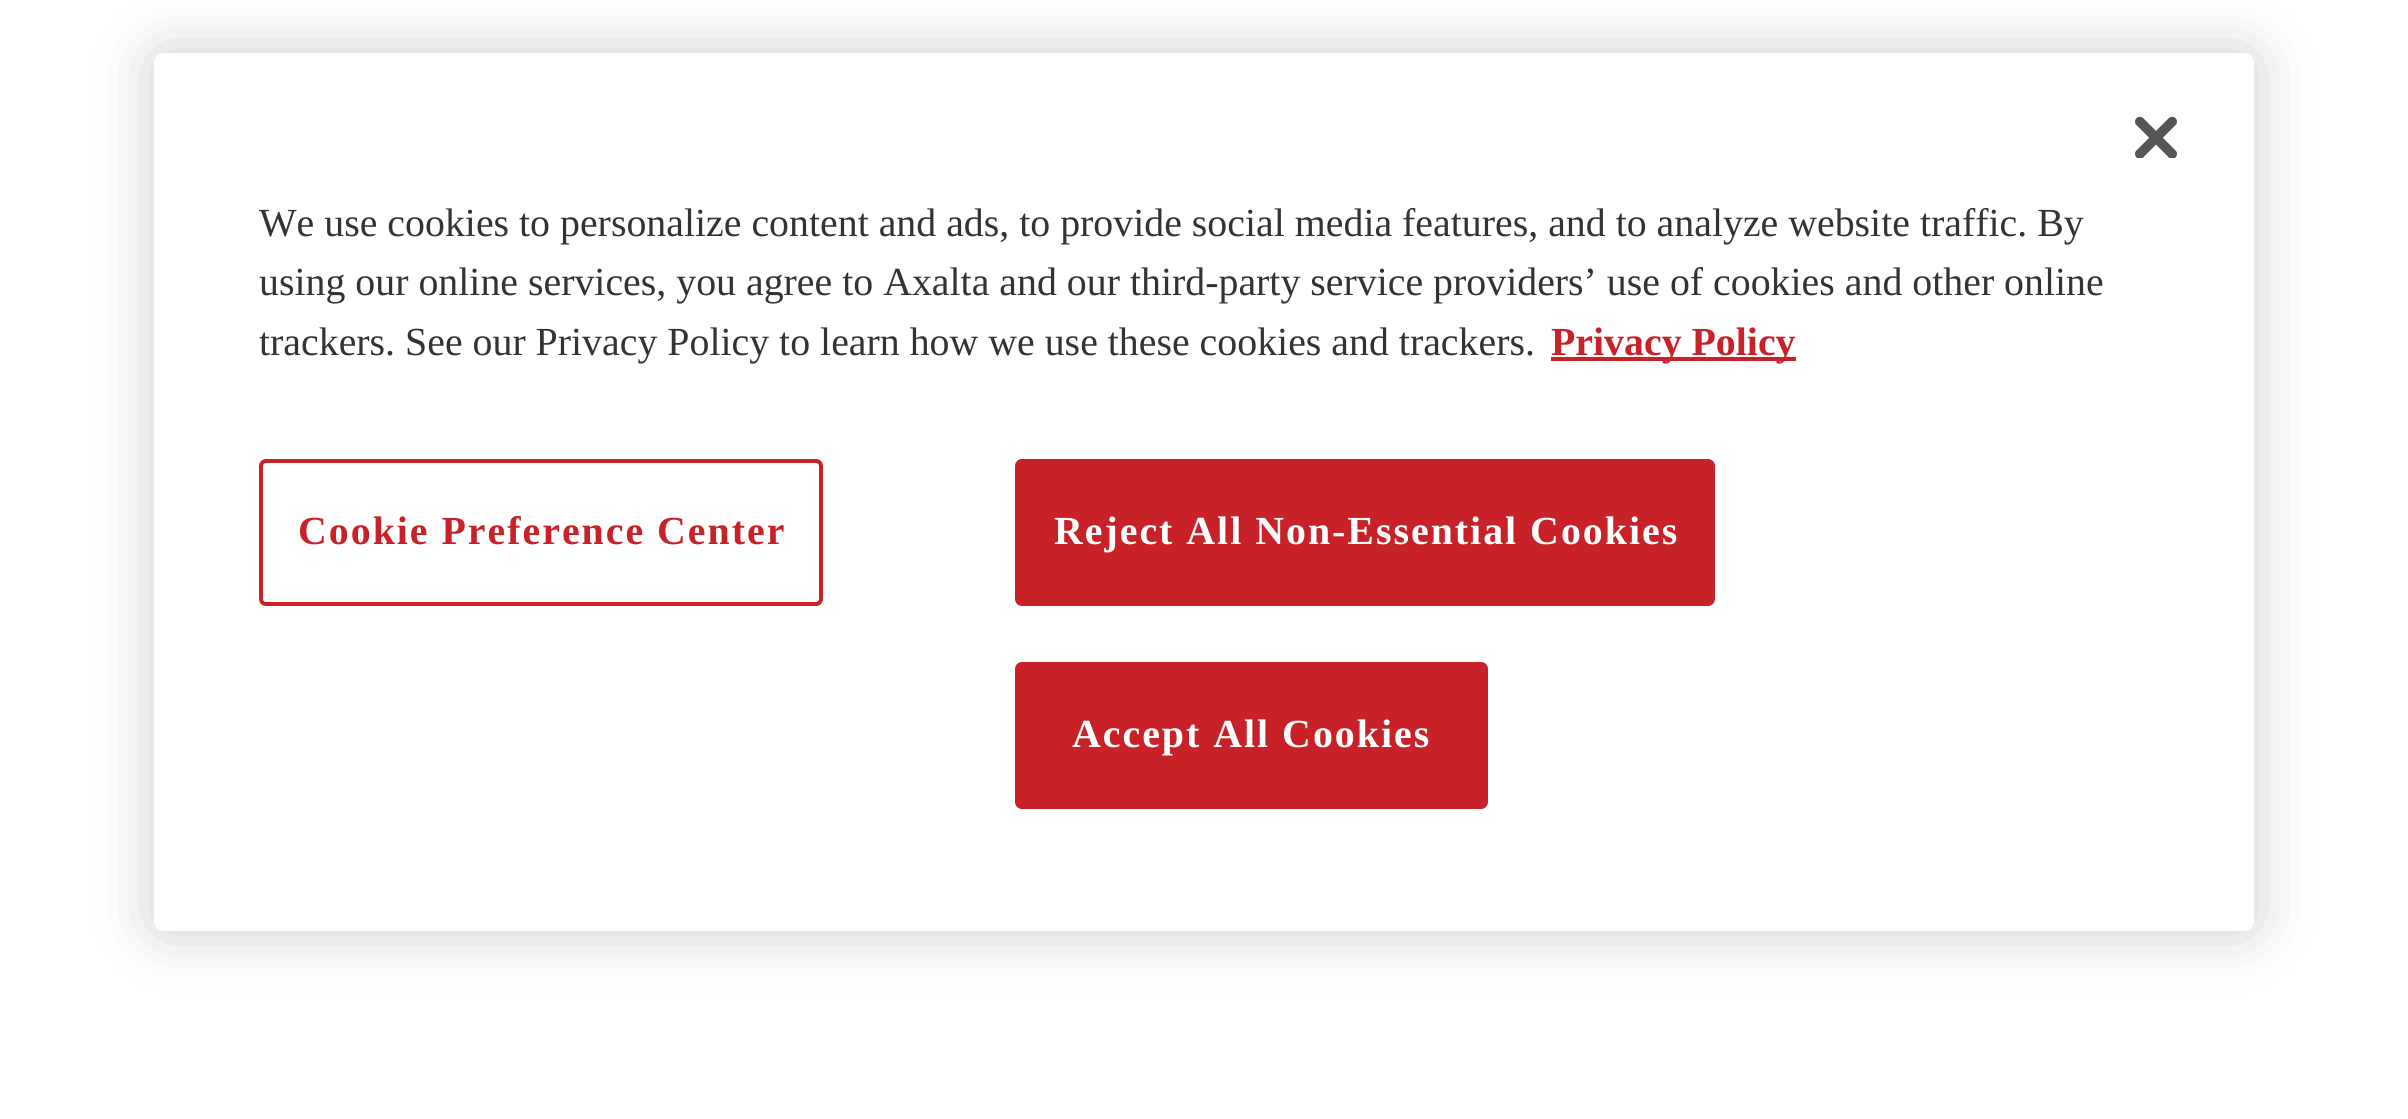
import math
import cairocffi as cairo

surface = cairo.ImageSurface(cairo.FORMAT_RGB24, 2408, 1119)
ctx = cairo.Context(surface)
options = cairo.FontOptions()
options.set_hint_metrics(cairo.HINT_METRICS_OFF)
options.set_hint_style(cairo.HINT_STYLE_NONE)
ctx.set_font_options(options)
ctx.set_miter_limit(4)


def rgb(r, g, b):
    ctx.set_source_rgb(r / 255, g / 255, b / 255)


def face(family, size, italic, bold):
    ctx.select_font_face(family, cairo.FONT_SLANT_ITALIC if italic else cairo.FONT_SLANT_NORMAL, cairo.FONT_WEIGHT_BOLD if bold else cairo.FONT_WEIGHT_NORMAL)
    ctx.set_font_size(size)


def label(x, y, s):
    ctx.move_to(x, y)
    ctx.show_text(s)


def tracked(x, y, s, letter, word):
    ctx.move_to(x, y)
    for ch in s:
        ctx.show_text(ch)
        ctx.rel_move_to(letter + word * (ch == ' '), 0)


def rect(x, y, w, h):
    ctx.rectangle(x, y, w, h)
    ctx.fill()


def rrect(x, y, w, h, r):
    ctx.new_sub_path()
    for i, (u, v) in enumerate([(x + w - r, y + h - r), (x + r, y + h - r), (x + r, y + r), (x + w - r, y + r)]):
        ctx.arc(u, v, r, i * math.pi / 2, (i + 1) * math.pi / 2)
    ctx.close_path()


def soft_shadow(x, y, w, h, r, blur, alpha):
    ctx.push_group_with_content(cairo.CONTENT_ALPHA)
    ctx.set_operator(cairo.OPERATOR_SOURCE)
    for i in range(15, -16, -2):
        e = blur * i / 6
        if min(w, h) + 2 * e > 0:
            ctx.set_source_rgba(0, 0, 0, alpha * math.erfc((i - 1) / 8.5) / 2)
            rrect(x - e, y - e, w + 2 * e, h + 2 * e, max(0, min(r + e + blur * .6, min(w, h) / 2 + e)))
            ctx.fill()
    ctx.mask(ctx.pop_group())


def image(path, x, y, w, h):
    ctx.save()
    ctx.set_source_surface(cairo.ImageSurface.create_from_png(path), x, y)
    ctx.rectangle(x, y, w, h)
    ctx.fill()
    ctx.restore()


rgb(255, 255, 255)
ctx.paint()
rgb(0, 0, 0)
soft_shadow(154, 53, 2100, 878, 9, 31.5, 0.2)
rgb(255, 255, 255)
rrect(154, 53, 2100, 878, 9)
ctx.fill()
image('image0.png', 2135, 116, 42, 42)
face('Liberation Serif', 39.85, 0, 0)
rgb(51, 51, 51)
label(259, 236, 'We use cookies to personalize content and ads, to provide social media features, and to analyze website traffic. By')
label(259, 295, 'using our online services, you agree to Axalta and our third-party service providers’ use of cookies and other online')
label(259, 355, 'trackers. See our Privacy Policy to learn how we use these cookies and trackers.')
rgb(200, 33, 39)
rect(1551, 357, 245, 4)
face('Liberation Serif', 39.85, 0, 1)
label(1551, 355, 'Privacy Policy')
rrect(261, 461, 560, 143, 5)
ctx.set_line_width(4)
ctx.stroke()
tracked(298, 544, 'Cookie Preference Center', 2, 0)
rrect(1017, 461, 696, 143, 5)
ctx.fill_preserve()
ctx.stroke()
rgb(255, 255, 255)
tracked(1054, 544, 'Reject All Non-Essential Cookies', 2, 0)
rgb(200, 33, 39)
rrect(1017, 664, 469, 143, 5)
ctx.fill_preserve()
ctx.stroke()
rgb(255, 255, 255)
tracked(1072, 747, 'Accept All Cookies', 2, 0)
surface.write_to_png('render.png')
